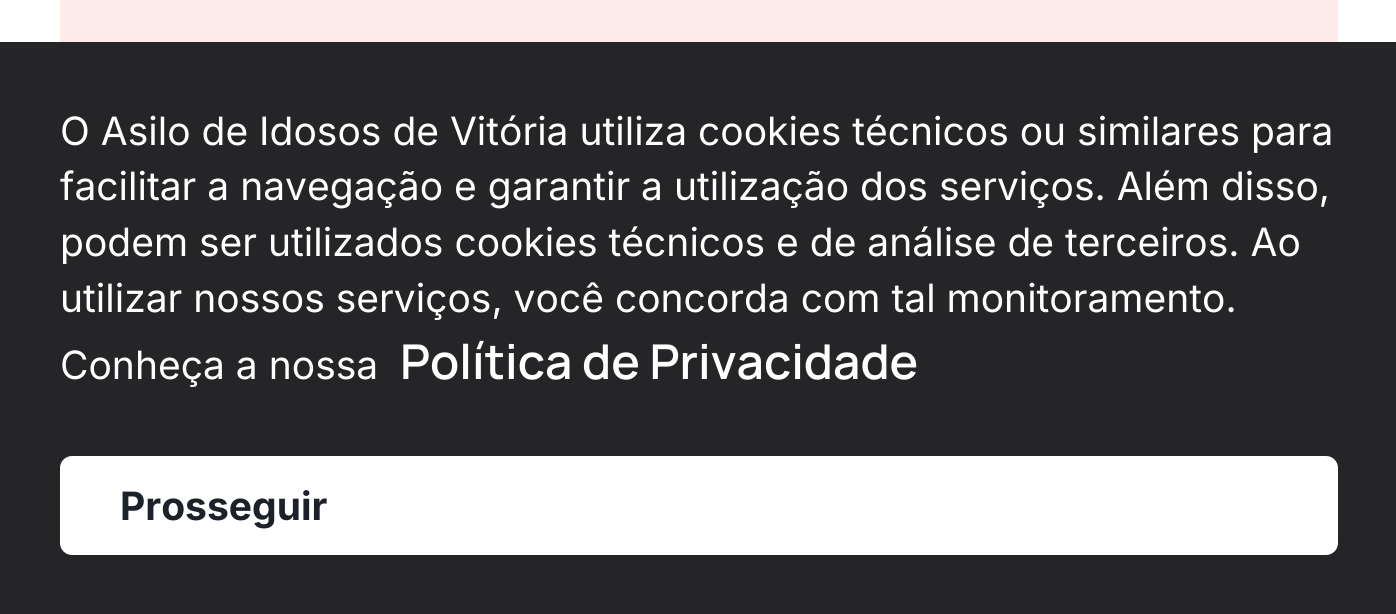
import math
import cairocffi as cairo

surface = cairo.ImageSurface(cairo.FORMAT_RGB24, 1396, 614)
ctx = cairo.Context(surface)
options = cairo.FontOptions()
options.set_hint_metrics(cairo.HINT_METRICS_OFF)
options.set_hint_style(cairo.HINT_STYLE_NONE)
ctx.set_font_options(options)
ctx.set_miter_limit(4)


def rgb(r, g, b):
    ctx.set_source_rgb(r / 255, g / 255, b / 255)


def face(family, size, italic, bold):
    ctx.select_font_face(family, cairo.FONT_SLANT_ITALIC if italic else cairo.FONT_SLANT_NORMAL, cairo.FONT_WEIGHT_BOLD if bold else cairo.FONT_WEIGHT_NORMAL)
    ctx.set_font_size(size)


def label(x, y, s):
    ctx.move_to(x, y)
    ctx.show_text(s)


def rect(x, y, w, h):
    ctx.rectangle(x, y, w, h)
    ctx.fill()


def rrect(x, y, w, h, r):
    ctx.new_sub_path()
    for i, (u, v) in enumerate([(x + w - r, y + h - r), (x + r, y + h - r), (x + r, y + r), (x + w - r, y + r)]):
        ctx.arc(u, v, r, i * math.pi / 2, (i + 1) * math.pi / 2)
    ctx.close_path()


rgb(255, 255, 255)
ctx.paint()
rgb(253, 235, 234)
rect(60, 0, 1278, 42)
rgb(37, 37, 40)
rect(0, 42, 1396, 572)
face('Inter', 39, 0, 0)
rgb(255, 255, 255)
label(60, 145, 'O Asilo de Idosos de Vitória utiliza cookies técnicos ou similares para')
label(60, 200, 'facilitar a navegação e garantir a utilização dos serviços. Além disso,')
label(60, 256, 'podem ser utilizados cookies técnicos e de análise de terceiros. Ao')
label(60, 312, 'utilizar nossos serviços, você concorda com tal monitoramento.')
label(60, 379, 'Conheça a nossa')
face('Manrope SemiBold', 48, 0, 0)
label(400, 379, 'Política de Privacidade')
rrect(60, 456, 1278, 99, 12)
ctx.fill()
face('Inter', 39, 0, 1)
rgb(29, 33, 41)
label(120, 520, 'Prosseguir')
surface.write_to_png('render.png')
